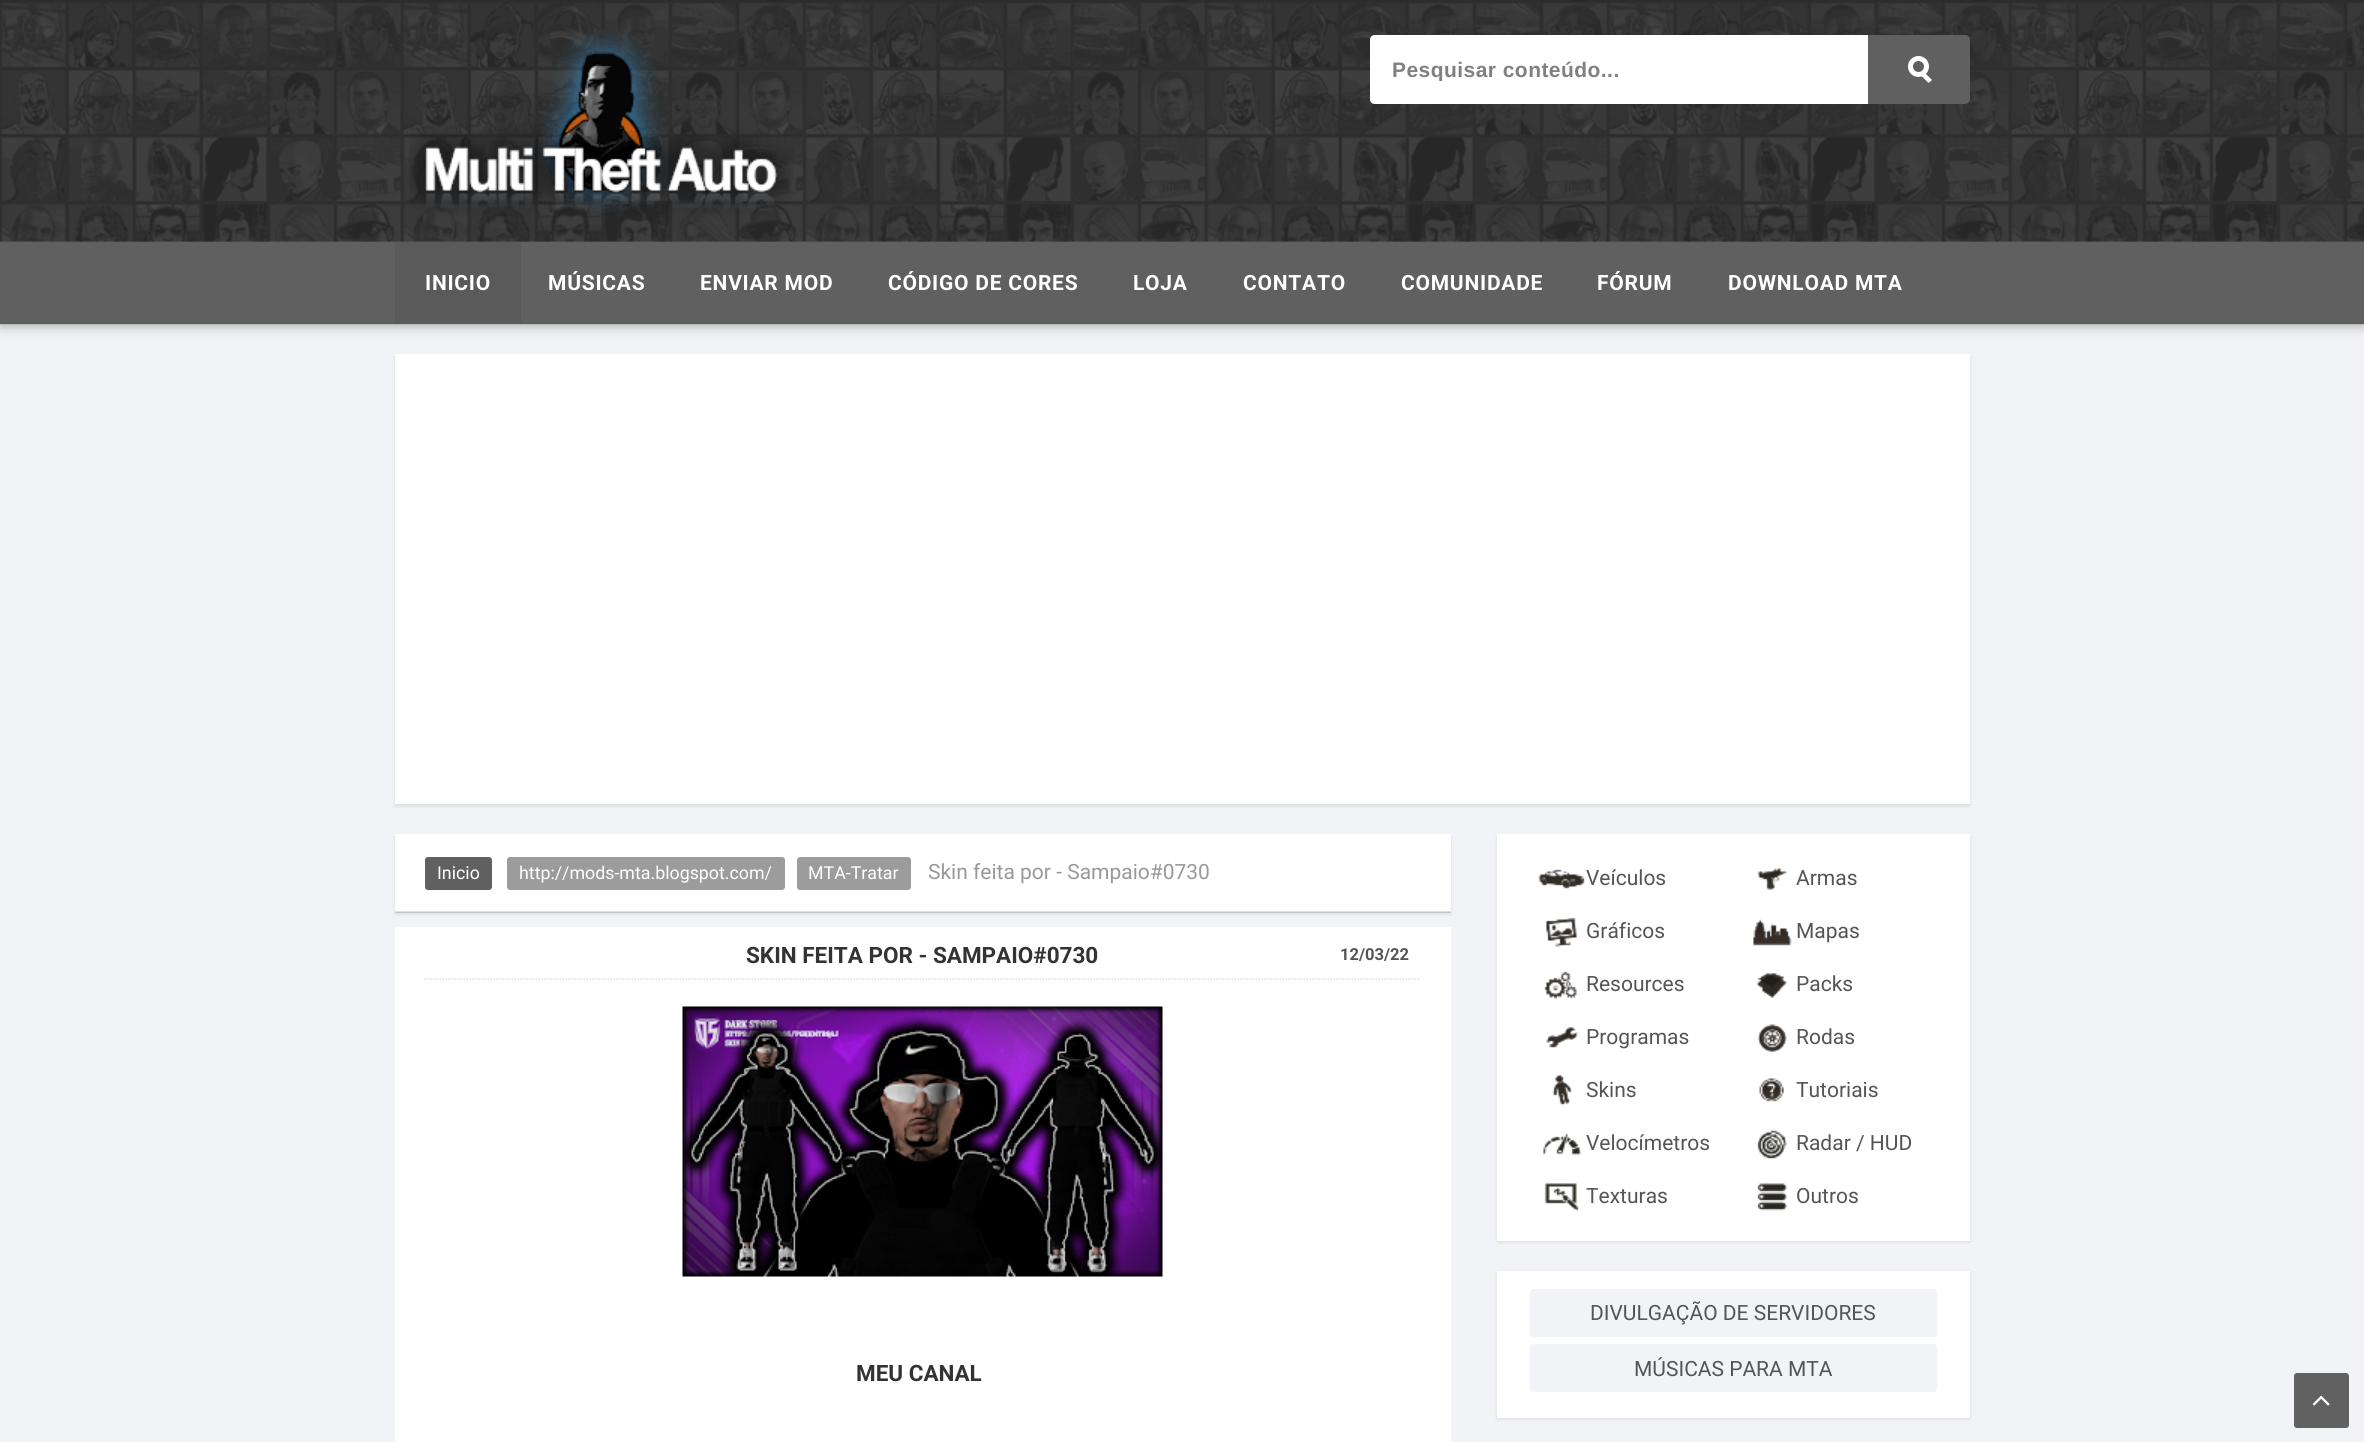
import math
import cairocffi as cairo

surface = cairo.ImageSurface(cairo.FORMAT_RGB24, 2364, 1442)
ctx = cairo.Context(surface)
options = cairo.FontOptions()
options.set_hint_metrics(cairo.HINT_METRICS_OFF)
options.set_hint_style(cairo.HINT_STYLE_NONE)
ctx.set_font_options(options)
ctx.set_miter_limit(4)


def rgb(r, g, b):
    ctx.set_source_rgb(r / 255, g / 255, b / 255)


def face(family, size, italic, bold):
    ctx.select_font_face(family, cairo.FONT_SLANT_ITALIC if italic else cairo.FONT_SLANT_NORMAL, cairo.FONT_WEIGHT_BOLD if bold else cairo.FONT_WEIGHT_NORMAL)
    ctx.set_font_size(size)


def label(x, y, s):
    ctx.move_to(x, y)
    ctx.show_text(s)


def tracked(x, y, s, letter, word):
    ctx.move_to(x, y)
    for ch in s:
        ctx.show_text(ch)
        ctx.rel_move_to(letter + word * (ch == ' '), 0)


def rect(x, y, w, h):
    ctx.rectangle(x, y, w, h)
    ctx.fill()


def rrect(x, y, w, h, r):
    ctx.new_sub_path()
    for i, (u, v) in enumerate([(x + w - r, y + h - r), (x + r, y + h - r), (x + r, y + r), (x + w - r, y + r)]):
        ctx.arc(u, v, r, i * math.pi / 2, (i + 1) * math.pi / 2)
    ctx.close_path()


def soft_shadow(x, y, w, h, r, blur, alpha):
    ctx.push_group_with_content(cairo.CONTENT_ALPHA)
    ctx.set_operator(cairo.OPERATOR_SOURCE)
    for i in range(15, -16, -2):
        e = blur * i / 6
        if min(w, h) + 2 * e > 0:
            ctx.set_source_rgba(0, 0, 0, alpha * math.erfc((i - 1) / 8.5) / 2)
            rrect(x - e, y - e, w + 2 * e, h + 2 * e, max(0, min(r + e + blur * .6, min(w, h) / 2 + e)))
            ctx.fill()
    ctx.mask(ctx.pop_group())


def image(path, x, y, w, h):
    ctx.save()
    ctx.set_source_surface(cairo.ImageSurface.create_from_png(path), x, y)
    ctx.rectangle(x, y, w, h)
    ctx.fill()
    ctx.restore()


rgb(242, 243, 246)
ctx.paint()
rgb(0, 0, 0)
soft_shadow(0, 245, 2364, 82, 0, 7.5, 0.12)
soft_shadow(0, 245, 2364, 82, 0, 4, 0.16)
rgb(86, 86, 86)
rect(0, 241, 2364, 1)
image('image0.png', 0, 0, 2364, 242)
ctx.set_source_rgba(0, 0, 0, 0.06)
rect(0, 0, 2364, 2)
image('image1.png', 409, 29, 384, 187)
rgb(96, 96, 96)
rrect(1370, 35, 600, 69, 5)
ctx.fill()
rgb(255, 255, 255)
ctx.new_path()
ctx.move_to(1375, 35)
ctx.line_to(1868, 35)
ctx.line_to(1868, 104)
ctx.line_to(1375, 104)
ctx.curve_to(1372, 104, 1370, 102, 1370, 99)
ctx.line_to(1370, 40)
ctx.curve_to(1370, 37, 1372, 35, 1375, 35)
ctx.close_path()
ctx.fill()
ctx.save()
ctx.rectangle(1392, 57, 453, 24)
ctx.clip()
face('Liberation Sans', 21, 0, 1)
rgb(128, 128, 128)
tracked(1392, 77, 'Pesquisar conteúdo...', 0.45, 0)
ctx.restore()
ctx.new_path()
ctx.arc(1918.5, 66.5, 8, 0, 2 * math.pi)
ctx.set_line_width(5)
ctx.stroke()
ctx.new_path()
ctx.move_to(1923.5, 71.5)
ctx.line_to(1932, 80)
ctx.line_to(1928.5, 83)
ctx.line_to(1920, 74.5)
ctx.close_path()
ctx.fill()
rgb(96, 96, 96)
rect(0, 242, 2364, 82)
ctx.set_source_rgba(0, 0, 0, 0.06)
rect(0, 323, 2364, 2)
rgb(90, 90, 90)
rect(395, 242, 126, 81)
face('Roboto', 21, 0, 1)
rgb(255, 255, 255)
tracked(425, 290, 'INICIO', 0.75, 0)
tracked(548, 290, 'MÚSICAS', 0.75, 0)
tracked(700, 290, 'ENVIAR MOD', 0.75, 0)
tracked(888, 290, 'CÓDIGO DE CORES', 0.75, 0)
tracked(1133, 290, 'LOJA', 0.75, 0)
tracked(1243, 290, 'CONTATO', 0.75, 0)
tracked(1401, 290, 'COMUNIDADE', 0.75, 0)
tracked(1597, 290, 'FÓRUM', 0.75, 0)
tracked(1728, 290, 'DOWNLOAD MTA', 0.75, 0)
rgb(0, 0, 0)
soft_shadow(395, 356, 1575, 450, 0, 1.5, 0.1)
rgb(255, 255, 255)
rect(395, 354, 1575, 450)
rgb(0, 0, 0)
soft_shadow(395, 836, 1056, 78, 0, 1.5, 0.1)
rgb(255, 255, 255)
rect(395, 834, 1056, 78)
ctx.set_source_rgba(0, 0, 0, 0.12)
rect(395, 911, 1056, 2)
rgb(96, 96, 96)
rrect(425, 857, 67, 33, 3)
ctx.fill()
face('Roboto', 17.8, 0, 0)
rgb(255, 255, 255)
label(437, 879, 'Inicio')
rgb(156, 156, 156)
rrect(507, 857, 278, 33, 3)
ctx.fill()
rgb(255, 255, 255)
label(519, 879, 'http://mods-mta.blogspot.com/')
rgb(156, 156, 156)
rrect(797, 857, 114, 33, 3)
ctx.fill()
rgb(255, 255, 255)
label(808, 879, 'MTA-Tratar')
face('Roboto', 21, 0, 0)
rgb(153, 153, 153)
label(928, 879, 'Skin feita por - Sampaio#0730')
rgb(255, 255, 255)
rect(395, 927, 1056, 515)
ctx.new_path()
ctx.move_to(424.5, 979)
ctx.line_to(1420.5, 979)
rgb(221, 221, 221)
ctx.set_line_width(1.5)
ctx.set_dash([1.5, 1.5])
ctx.stroke()
face('Roboto', 22.5, 0, 1)
rgb(51, 51, 51)
label(746, 963, 'SKIN FEITA POR - SAMPAIO#0730')
face('Roboto', 16.5, 0, 1)
rgb(85, 85, 85)
label(1340, 960, '12/03/22')
rgb(250, 250, 250)
rect(683, 1007, 480, 270)
image('image2.png', 682, 1006, 481, 271)
face('Roboto', 22.5, 0, 1)
rgb(51, 51, 51)
label(856, 1381, 'MEU CANAL')
rgb(0, 0, 0)
soft_shadow(1497, 836, 473, 406, 0, 1.5, 0.1)
rgb(255, 255, 255)
rect(1497, 834, 473, 407)
image('image3.png', 1538, 869, 47, 20)
face('Roboto', 21, 0, 0)
rgb(85, 85, 85)
label(1586, 885, 'Veículos')
image('image4.png', 1757, 867, 30, 23)
label(1796, 885, 'Armas')
image('image5.png', 1545, 918, 32, 29)
label(1586, 938, 'Gráficos')
image('image6.png', 1753, 919, 39, 27)
label(1796, 938, 'Mapas')
image('image7.png', 1544, 971, 34, 29)
label(1586, 991, 'Resources')
image('image8.png', 1756, 973, 31, 25)
label(1796, 991, 'Packs')
image('image9.png', 1546, 1027, 33, 22)
label(1586, 1044, 'Programas')
image('image10.png', 1757, 1024, 30, 28)
label(1796, 1044, 'Rodas')
image('image11.png', 1552, 1075, 21, 30)
label(1586, 1097, 'Skins')
image('image12.png', 1759, 1078, 25, 24)
label(1796, 1097, 'Tutoriais')
image('image13.png', 1543, 1133, 39, 23)
label(1586, 1150, 'Velocímetros')
image('image14.png', 1757, 1129, 30, 30)
label(1796, 1150, 'Radar / HUD')
image('image15.png', 1544, 1183, 35, 28)
label(1586, 1203, 'Texturas')
image('image16.png', 1757, 1183, 30, 28)
label(1796, 1203, 'Outros')
rgb(0, 0, 0)
soft_shadow(1497, 1272, 473, 147, 0, 1.5, 0.1)
rgb(255, 255, 255)
rect(1497, 1271, 473, 147)
rgb(242, 243, 246)
rrect(1530, 1289, 407, 48, 3)
ctx.fill()
rgb(85, 85, 85)
label(1590, 1320, 'DIVULGAÇÃO DE SERVIDORES')
rgb(242, 243, 246)
rrect(1530, 1344, 407, 48, 3)
ctx.fill()
rgb(85, 85, 85)
label(1634, 1376, 'MÚSICAS PARA MTA')
rgb(97, 97, 98)
rrect(2294, 1373, 55, 55, 3)
ctx.fill()
image('image17.png', 2312, 1395, 18, 11)
surface.write_to_png('render.png')
